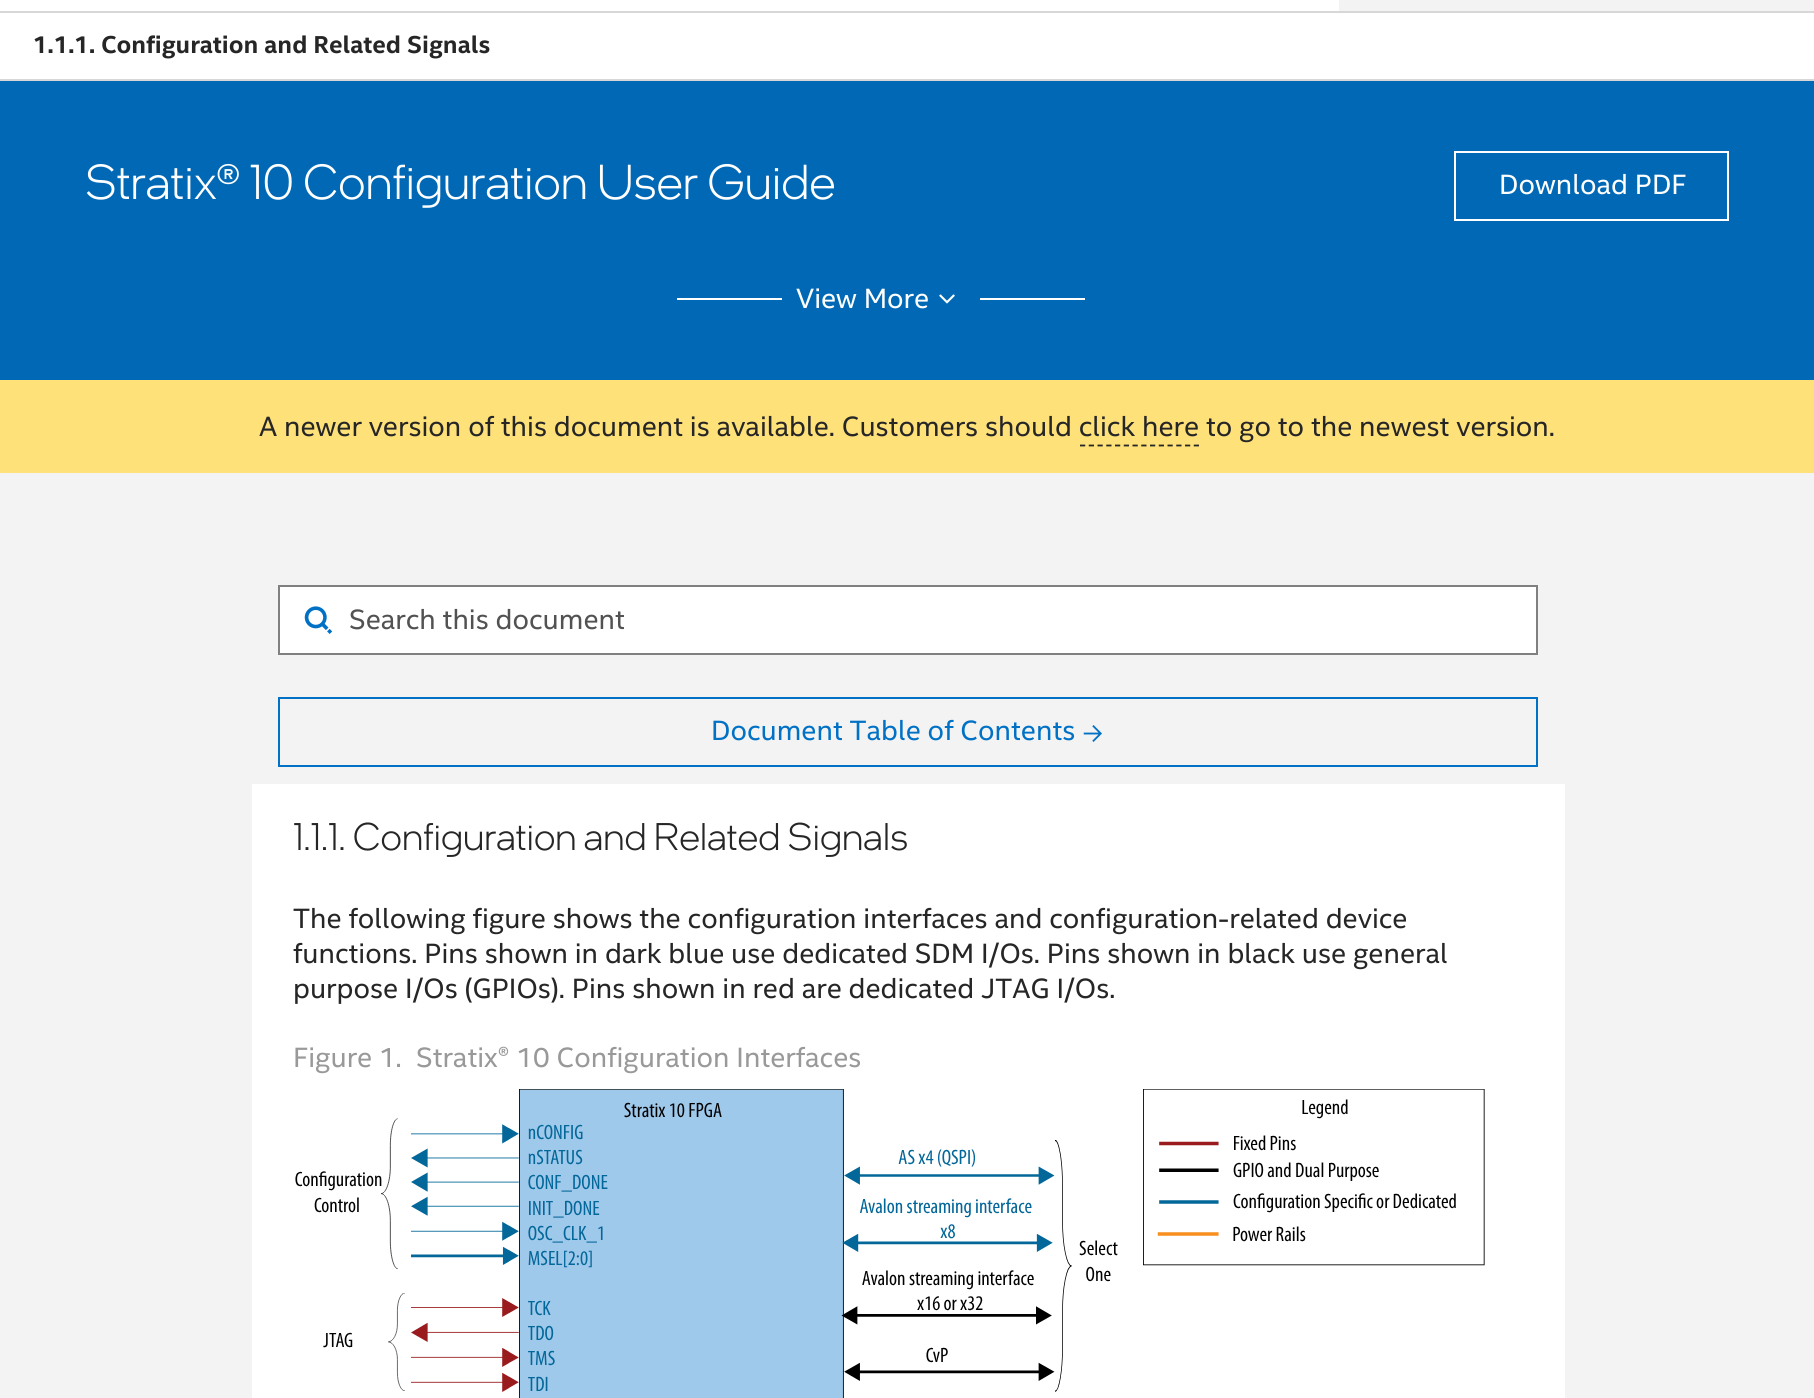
import math
import cairocffi as cairo

surface = cairo.ImageSurface(cairo.FORMAT_RGB24, 1814, 1398)
ctx = cairo.Context(surface)
options = cairo.FontOptions()
options.set_hint_metrics(cairo.HINT_METRICS_OFF)
options.set_hint_style(cairo.HINT_STYLE_NONE)
ctx.set_font_options(options)
ctx.set_miter_limit(4)


def rgb(r, g, b):
    ctx.set_source_rgb(r / 255, g / 255, b / 255)


def face(family, size, italic, bold):
    ctx.select_font_face(family, cairo.FONT_SLANT_ITALIC if italic else cairo.FONT_SLANT_NORMAL, cairo.FONT_WEIGHT_BOLD if bold else cairo.FONT_WEIGHT_NORMAL)
    ctx.set_font_size(size)


def label(x, y, s):
    ctx.move_to(x, y)
    ctx.show_text(s)


def rect(x, y, w, h):
    ctx.rectangle(x, y, w, h)
    ctx.fill()


def image(path, x, y, w, h):
    ctx.save()
    ctx.set_source_surface(cairo.ImageSurface.create_from_png(path), x, y)
    ctx.rectangle(x, y, w, h)
    ctx.fill()
    ctx.restore()


rgb(255, 255, 255)
ctx.paint()
rgb(215, 215, 215)
rect(0, 11, 1814, 2)
rgb(243, 243, 243)
rect(1339, 0, 475, 11)
rgb(215, 215, 215)
rect(0, 79, 1814, 2)
face('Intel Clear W', 24.5, 0, 1)
rgb(38, 38, 38)
label(33, 53, '1.1.1. Configuration and Related Signals')
rgb(0, 104, 181)
rect(0, 81, 1814, 299)
face('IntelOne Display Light', 49, 0, 0)
rgb(255, 255, 255)
label(85, 199, 'Stratix® 10 Configuration User Guide')
ctx.rectangle(1455, 152, 273, 68)
ctx.stroke()
face('Intel Clear W', 28, 0, 0)
label(1499, 194, 'Download PDF')
rect(677, 298, 105, 2)
label(796, 308, 'View More')
image('image0.png', 939, 294, 16, 10)
rect(980, 298, 105, 2)
rgb(255, 225, 122)
rect(0, 380, 1814, 93)
rgb(38, 38, 38)
label(259, 436, 'A newer version of this document is available. Customers should click here to go to the newest version.')
ctx.new_path()
ctx.move_to(1080, 445.5)
ctx.line_to(1199, 445.5)
ctx.set_line_width(1.8)
ctx.set_dash([5.25, 3.5])
ctx.stroke()
rgb(243, 243, 243)
rect(0, 473, 1814, 925)
rgb(255, 255, 255)
ctx.rectangle(279, 586, 1258, 68)
ctx.fill_preserve()
rgb(128, 128, 128)
ctx.set_line_width(2)
ctx.set_dash([])
ctx.stroke()
image('image1.png', 304, 606, 29, 28)
rgb(82, 82, 82)
label(349, 629, 'Search this document')
ctx.rectangle(279, 698, 1258, 68)
rgb(0, 113, 197)
ctx.stroke()
label(711, 740, 'Document Table of Contents')
image('image2.png', 1083, 725, 19, 17)
rgb(255, 255, 255)
rect(252, 784, 1313, 614)
face('IntelOne Display Light', 38.5, 0, 0)
rgb(38, 38, 38)
label(293, 850, '1.1.1. Configuration and Related Signals')
face('Intel Clear W', 28, 0, 0)
label(293, 928, 'The following figure shows the configuration interfaces and configuration-related device')
label(293, 963, 'functions. Pins shown in dark blue use dedicated SDM I/Os. Pins shown in black use general')
label(293, 998, 'purpose I/Os (GPIOs). Pins shown in red are dedicated JTAG I/Os.')
rgb(153, 153, 153)
label(293, 1067, 'Figure 1.')
label(416, 1067, 'Stratix® 10 Configuration Interfaces')
image('image3.png', 295, 1089, 1190, 309)
surface.write_to_png('render.png')
